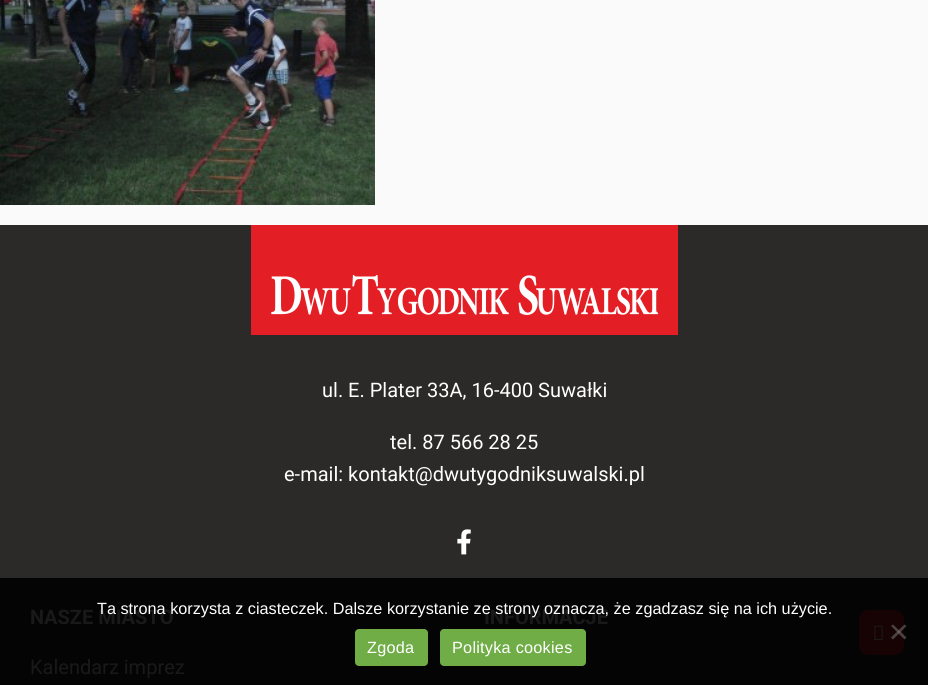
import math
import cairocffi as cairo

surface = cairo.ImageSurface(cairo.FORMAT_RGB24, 928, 685)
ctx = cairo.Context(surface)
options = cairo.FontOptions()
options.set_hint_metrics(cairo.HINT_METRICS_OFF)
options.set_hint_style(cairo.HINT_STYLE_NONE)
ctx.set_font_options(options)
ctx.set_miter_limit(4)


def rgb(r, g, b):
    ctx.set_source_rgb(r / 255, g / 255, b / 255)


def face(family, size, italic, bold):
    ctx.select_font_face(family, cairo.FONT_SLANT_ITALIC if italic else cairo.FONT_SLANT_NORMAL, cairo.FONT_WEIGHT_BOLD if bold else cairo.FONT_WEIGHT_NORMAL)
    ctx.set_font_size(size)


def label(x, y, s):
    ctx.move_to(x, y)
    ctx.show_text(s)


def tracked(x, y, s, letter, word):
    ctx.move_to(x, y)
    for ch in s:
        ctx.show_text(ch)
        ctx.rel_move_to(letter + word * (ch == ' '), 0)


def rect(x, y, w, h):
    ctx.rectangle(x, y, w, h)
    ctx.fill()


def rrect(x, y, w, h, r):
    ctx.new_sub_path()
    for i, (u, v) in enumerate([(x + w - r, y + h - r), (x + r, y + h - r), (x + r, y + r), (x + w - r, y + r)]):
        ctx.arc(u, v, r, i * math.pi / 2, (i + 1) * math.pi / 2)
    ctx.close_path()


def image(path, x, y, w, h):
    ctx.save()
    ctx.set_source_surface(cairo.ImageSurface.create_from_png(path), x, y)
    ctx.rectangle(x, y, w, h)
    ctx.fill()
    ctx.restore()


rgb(250, 250, 250)
ctx.paint()
image('image0.png', 0, 0, 375, 205)
rgb(43, 42, 41)
rect(0, 225, 928, 353)
rgb(4, 4, 4)
rect(0, 578, 928, 107)
rgb(227, 30, 36)
rect(251, 225, 427, 110)
image('image1.png', 271, 275, 387, 40)
face('Roboto', 20, 0, 0)
rgb(255, 255, 255)
label(322, 397, 'ul. E. Plater 33A, 16-400 Suwałki')
label(390, 449, 'tel. 87 566 28 25')
label(284, 481, 'e-mail: kontakt@dwutygodniksuwalski.pl')
image('image2.png', 457, 529, 14, 26)
face('Roboto', 20, 0, 1)
rgb(25, 25, 25)
label(30, 624, 'NASZE MIASTO')
face('Roboto', 20, 0, 0)
label(30, 674, 'Kalendarz imprez')
face('Roboto', 20, 0, 1)
label(484, 624, 'INFORMACJE')
rgb(23, 3, 4)
rrect(859, 610, 45, 45, 10)
ctx.fill()
image('image3.png', 874, 625, 9, 15)
face('Liberation Sans', 16.25, 0, 0)
rgb(255, 255, 255)
label(97, 614, 'Ta strona korzysta z ciasteczek. Dalsze korzystanie ze strony oznacza, że zgadzasz się na ich użycie.')
ctx.set_source_rgba(0.502, 0.502, 0.502, 0.5)
ctx.new_path()
ctx.move_to(904.5, 624.5)
ctx.line_to(906.5, 626)
ctx.line_to(893, 639.5)
ctx.line_to(891, 637.5)
ctx.close_path()
ctx.fill()
ctx.new_path()
ctx.move_to(891, 626)
ctx.line_to(893, 624.5)
ctx.line_to(906.5, 637.5)
ctx.line_to(904.5, 639.5)
ctx.close_path()
ctx.fill()
rgb(112, 173, 71)
rrect(355, 629, 73, 37, 4)
ctx.fill()
rgb(255, 255, 255)
tracked(367, 653, 'Zgoda', 0.25, 0)
rgb(112, 173, 71)
rrect(440, 629, 146, 37, 4)
ctx.fill()
rgb(255, 255, 255)
tracked(452, 653, 'Polityka cookies', 0.25, 0)
surface.write_to_png('render.png')
